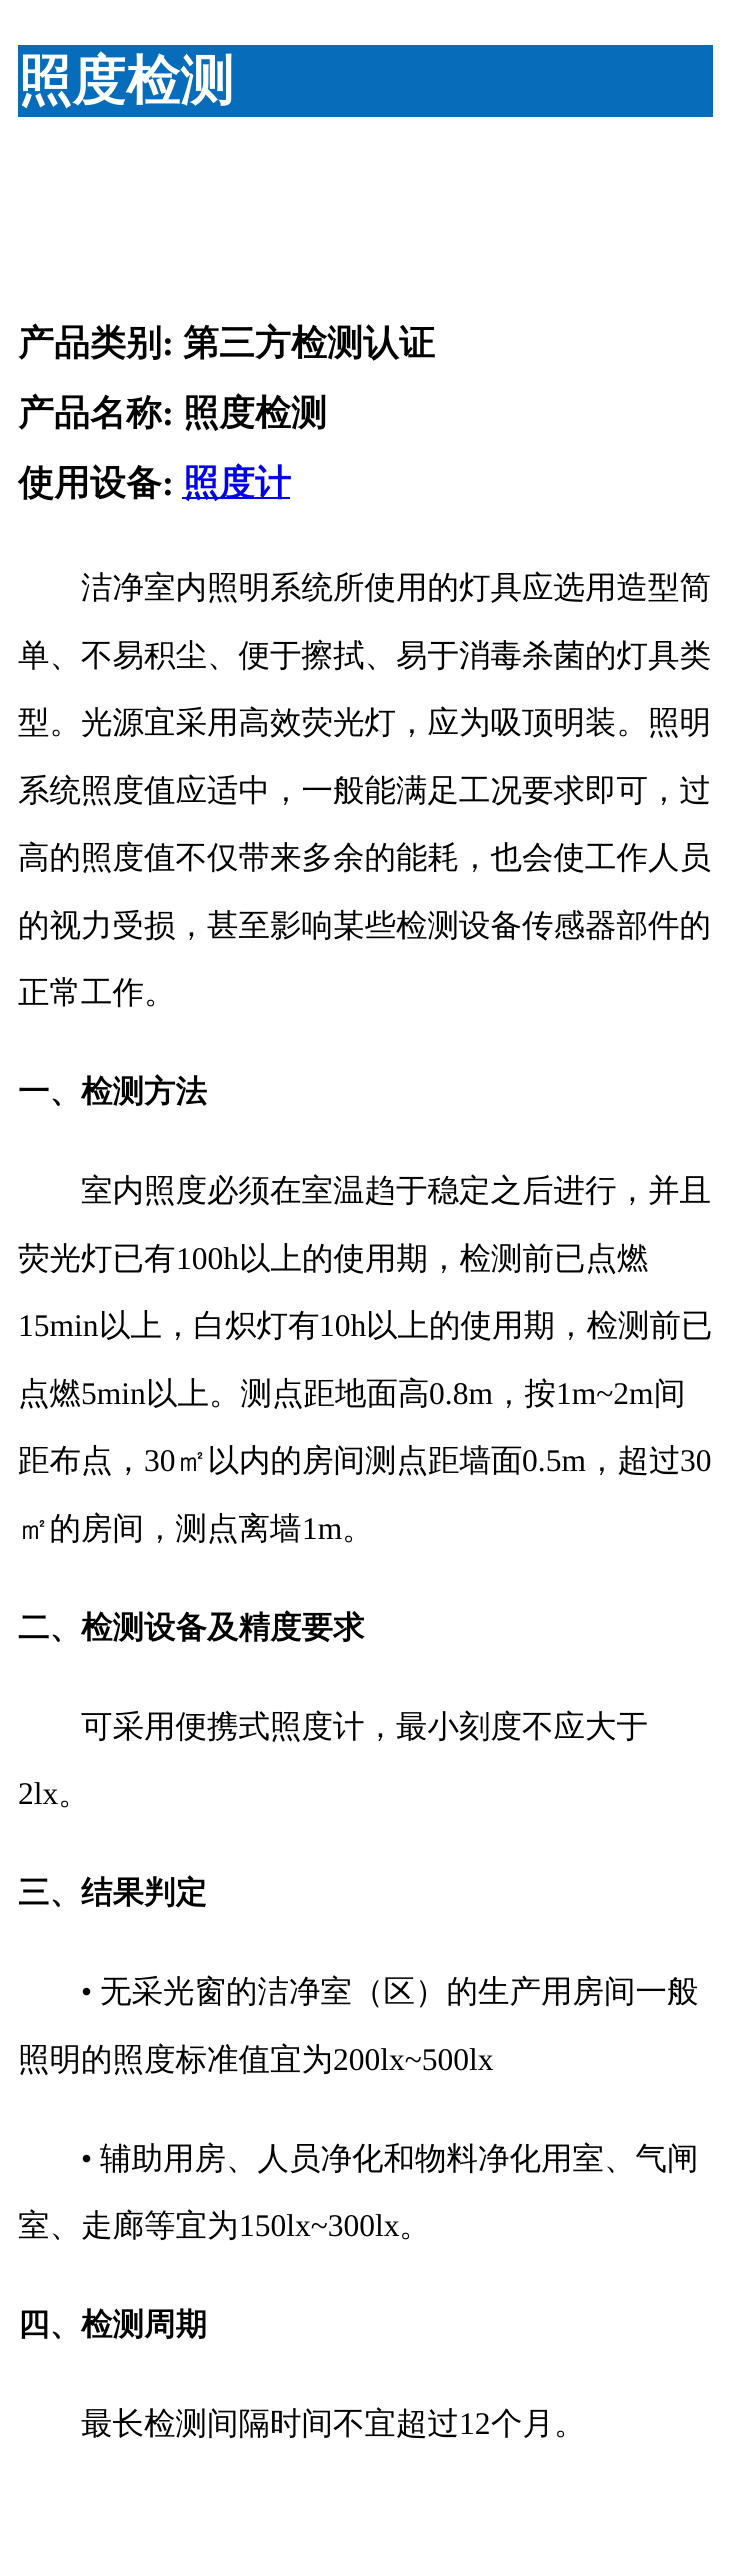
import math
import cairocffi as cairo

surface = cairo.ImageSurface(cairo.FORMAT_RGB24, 731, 2559)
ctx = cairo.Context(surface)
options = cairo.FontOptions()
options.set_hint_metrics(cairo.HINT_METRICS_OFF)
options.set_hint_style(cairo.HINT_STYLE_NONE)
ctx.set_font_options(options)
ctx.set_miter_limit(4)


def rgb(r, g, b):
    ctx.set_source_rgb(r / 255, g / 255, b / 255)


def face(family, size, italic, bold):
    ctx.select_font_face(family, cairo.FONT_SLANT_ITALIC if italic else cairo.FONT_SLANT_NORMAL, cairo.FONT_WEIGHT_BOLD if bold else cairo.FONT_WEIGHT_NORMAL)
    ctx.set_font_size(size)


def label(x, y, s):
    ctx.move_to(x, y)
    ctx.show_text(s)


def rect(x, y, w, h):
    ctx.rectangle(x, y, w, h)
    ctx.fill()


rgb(255, 255, 255)
ctx.paint()
rgb(7, 109, 187)
rect(18, 45, 695, 72)
face('WenQuanYi Zen Hei', 54, 0, 1)
rgb(255, 255, 255)
label(18, 99, '照度检测')
face('WenQuanYi Zen Hei', 36, 0, 1)
rgb(0, 0, 0)
label(18, 355, '产品类别')
face('Liberation Serif', 36, 0, 1)
label(162, 355, ':')
face('WenQuanYi Zen Hei', 36, 0, 1)
label(183, 355, '第三方检测认证')
label(18, 425, '产品名称')
face('Liberation Serif', 36, 0, 1)
label(162, 425, ':')
face('WenQuanYi Zen Hei', 36, 0, 1)
label(183, 425, '照度检测')
label(18, 495, '使用设备')
face('Liberation Serif', 36, 0, 1)
label(162, 495, ':')
rgb(0, 0, 238)
rect(182, 497, 108, 2)
face('WenQuanYi Zen Hei', 36, 0, 1)
label(183, 495, '照度计')
face('WenQuanYi Zen Hei Medium', 31.5, 0, 0)
rgb(0, 0, 0)
label(81, 598, '洁净室内照明系统所使用的灯具应选用造型简')
label(18, 666, '单、不易积尘、便于擦拭、易于消毒杀菌的灯具类')
label(18, 733, '型。光源宜采用高效荧光灯，应为吸顶明装。照明')
label(18, 801, '系统照度值应适中，一般能满足工况要求即可，过')
label(18, 868, '高的照度值不仅带来多余的能耗，也会使工作人员')
label(18, 936, '的视力受损，甚至影响某些检测设备传感器部件的')
label(18, 1003, '正常工作。')
face('WenQuanYi Zen Hei', 31.5, 0, 1)
label(18, 1102, '一、检测方法')
face('WenQuanYi Zen Hei Medium', 31.5, 0, 0)
label(81, 1201, '室内照度必须在室温趋于稳定之后进行，并且')
label(18, 1269, '荧光灯已有')
face('Liberation Serif', 31.5, 0, 0)
label(176, 1269, '100h')
face('WenQuanYi Zen Hei Medium', 31.5, 0, 0)
label(239, 1269, '以上的使用期，检测前已点燃')
face('Liberation Serif', 31.5, 0, 0)
label(18, 1336, '15min')
face('WenQuanYi Zen Hei Medium', 31.5, 0, 0)
label(99, 1336, '以上，白炽灯有')
face('Liberation Serif', 31.5, 0, 0)
label(319, 1336, '10h')
face('WenQuanYi Zen Hei Medium', 31.5, 0, 0)
label(366, 1336, '以上的使用期，检测前已')
label(18, 1404, '点燃')
face('Liberation Serif', 31.5, 0, 0)
label(81, 1404, '5min')
face('WenQuanYi Zen Hei Medium', 31.5, 0, 0)
label(146, 1404, '以上。测点距地面高')
face('Liberation Serif', 31.5, 0, 0)
label(429, 1404, '0.8m')
face('WenQuanYi Zen Hei Medium', 31.5, 0, 0)
label(493, 1404, '，按')
face('Liberation Serif', 31.5, 0, 0)
label(556, 1404, '1m~2m')
face('WenQuanYi Zen Hei Medium', 31.5, 0, 0)
label(654, 1404, '间')
label(18, 1471, '距布点，')
face('Liberation Serif', 31.5, 0, 0)
label(144, 1471, '30')
face('WenQuanYi Zen Hei Medium', 31.5, 0, 0)
label(176, 1471, '㎡以内的房间测点距墙面')
face('Liberation Serif', 31.5, 0, 0)
label(522, 1471, '0.5m')
face('WenQuanYi Zen Hei Medium', 31.5, 0, 0)
label(586, 1471, '，超过')
face('Liberation Serif', 31.5, 0, 0)
label(680, 1471, '30')
face('WenQuanYi Zen Hei Medium', 31.5, 0, 0)
label(18, 1539, '㎡的房间，测点离墙')
face('Liberation Serif', 31.5, 0, 0)
label(302, 1539, '1m')
face('WenQuanYi Zen Hei Medium', 31.5, 0, 0)
label(342, 1539, '。')
face('WenQuanYi Zen Hei', 31.5, 0, 1)
label(18, 1638, '二、检测设备及精度要求')
face('WenQuanYi Zen Hei Medium', 31.5, 0, 0)
label(81, 1737, '可采用便携式照度计，最小刻度不应大于')
face('Liberation Serif', 31.5, 0, 0)
label(18, 1804, '2lx')
face('WenQuanYi Zen Hei Medium', 31.5, 0, 0)
label(58, 1804, '。')
face('WenQuanYi Zen Hei', 31.5, 0, 1)
label(18, 1903, '三、结果判定')
face('Liberation Serif', 31.5, 0, 0)
label(81, 2002, '•')
face('WenQuanYi Zen Hei Medium', 31.5, 0, 0)
label(100, 2002, '无采光窗的洁净室（区）的生产用房间一般')
label(18, 2070, '照明的照度标准值宜为')
face('Liberation Serif', 31.5, 0, 0)
label(333, 2070, '200lx~500lx')
label(81, 2169, '•')
face('WenQuanYi Zen Hei Medium', 31.5, 0, 0)
label(100, 2169, '辅助用房、人员净化和物料净化用室、气闸')
label(18, 2236, '室、走廊等宜为')
face('Liberation Serif', 31.5, 0, 0)
label(239, 2236, '150lx~300lx')
face('WenQuanYi Zen Hei Medium', 31.5, 0, 0)
label(399, 2236, '。')
face('WenQuanYi Zen Hei', 31.5, 0, 1)
label(18, 2335, '四、检测周期')
face('WenQuanYi Zen Hei Medium', 31.5, 0, 0)
label(81, 2434, '最长检测间隔时间不宜超过')
face('Liberation Serif', 31.5, 0, 0)
label(459, 2434, '12')
face('WenQuanYi Zen Hei Medium', 31.5, 0, 0)
label(491, 2434, '个月。')
surface.write_to_png('render.png')
